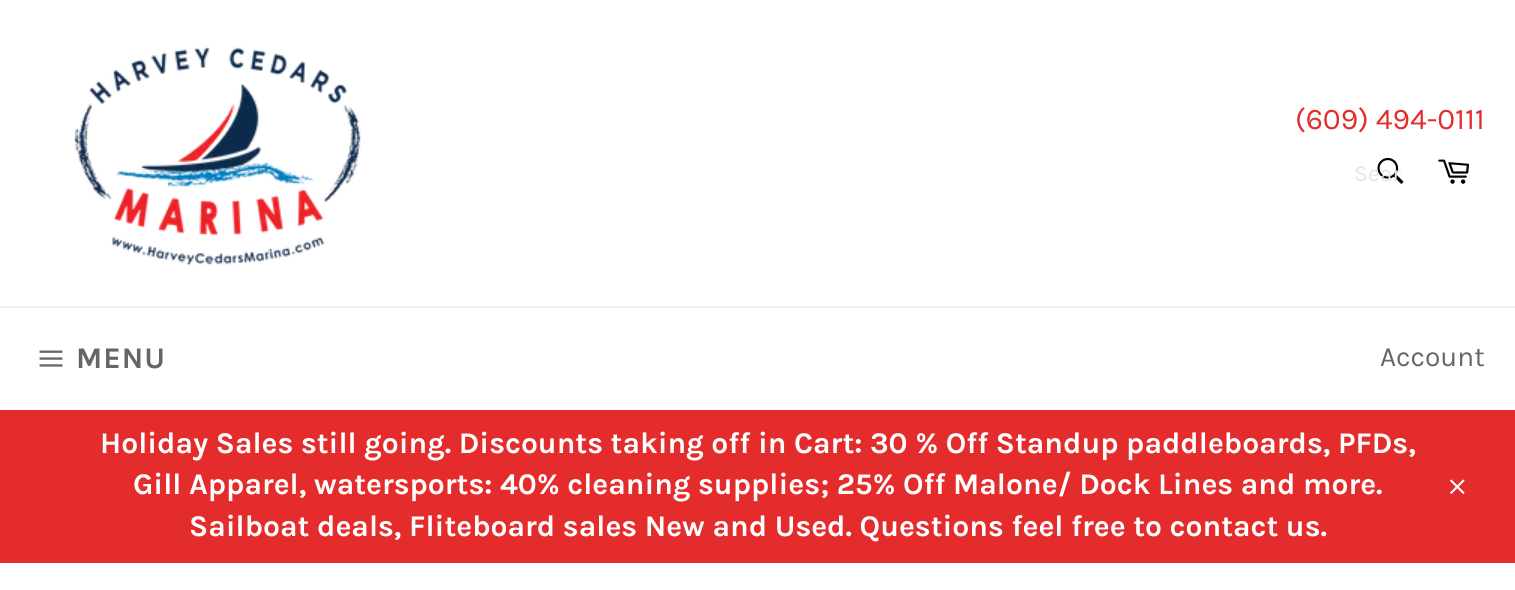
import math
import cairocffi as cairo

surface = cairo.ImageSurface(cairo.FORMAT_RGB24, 1515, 590)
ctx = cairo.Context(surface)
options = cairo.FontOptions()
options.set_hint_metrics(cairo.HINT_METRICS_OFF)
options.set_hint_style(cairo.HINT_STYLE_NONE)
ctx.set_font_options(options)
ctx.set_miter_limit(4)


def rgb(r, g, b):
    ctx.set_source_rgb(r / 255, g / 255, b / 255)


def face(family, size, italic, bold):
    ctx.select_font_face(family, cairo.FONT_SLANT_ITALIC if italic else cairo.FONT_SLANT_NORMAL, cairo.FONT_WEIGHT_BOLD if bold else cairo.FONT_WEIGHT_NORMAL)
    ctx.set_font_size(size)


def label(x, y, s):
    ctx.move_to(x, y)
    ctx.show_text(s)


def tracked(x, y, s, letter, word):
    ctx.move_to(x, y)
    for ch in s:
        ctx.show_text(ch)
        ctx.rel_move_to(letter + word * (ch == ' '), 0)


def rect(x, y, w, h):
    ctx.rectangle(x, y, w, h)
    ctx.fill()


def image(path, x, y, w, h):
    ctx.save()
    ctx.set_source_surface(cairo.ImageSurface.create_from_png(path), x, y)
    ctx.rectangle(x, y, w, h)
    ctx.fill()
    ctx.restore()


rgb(255, 255, 255)
ctx.paint()
image('image0.png', 74, 47, 287, 219)
face('Karla', 30, 0, 0)
rgb(227, 44, 43)
label(1295, 129, '(609) 494-0111')
image('image1.png', 1377, 157, 27, 27)
face('Karla', 23, 0, 0)
rgb(228, 228, 228)
label(1354, 181, 'Sear')
image('image2.png', 1438, 159, 31, 25)
rgb(242, 242, 242)
rect(0, 306, 1515, 2)
image('image3.png', 39, 350, 24, 17)
face('Karla', 30, 0, 1)
rgb(102, 102, 102)
tracked(76, 368, 'MENU', 1, 0)
face('Karla', 28, 0, 0)
label(1380, 366, 'Account')
rgb(227, 44, 43)
rect(0, 410, 1515, 153)
face('Karla', 30, 0, 1)
rgb(255, 255, 255)
label(100, 453, 'Holiday Sales still going. Discounts taking off in Cart: 30 % Off Standup paddleboards, PFDs,')
label(133, 494, 'Gill Apparel, watersports: 40% cleaning supplies; 25% Off Malone/ Dock Lines and more.')
label(189, 536, 'Sailboat deals, Fliteboard sales New and Used. Questions feel free to contact us.')
image('image4.png', 1449, 479, 16, 16)
surface.write_to_png('render.png')
